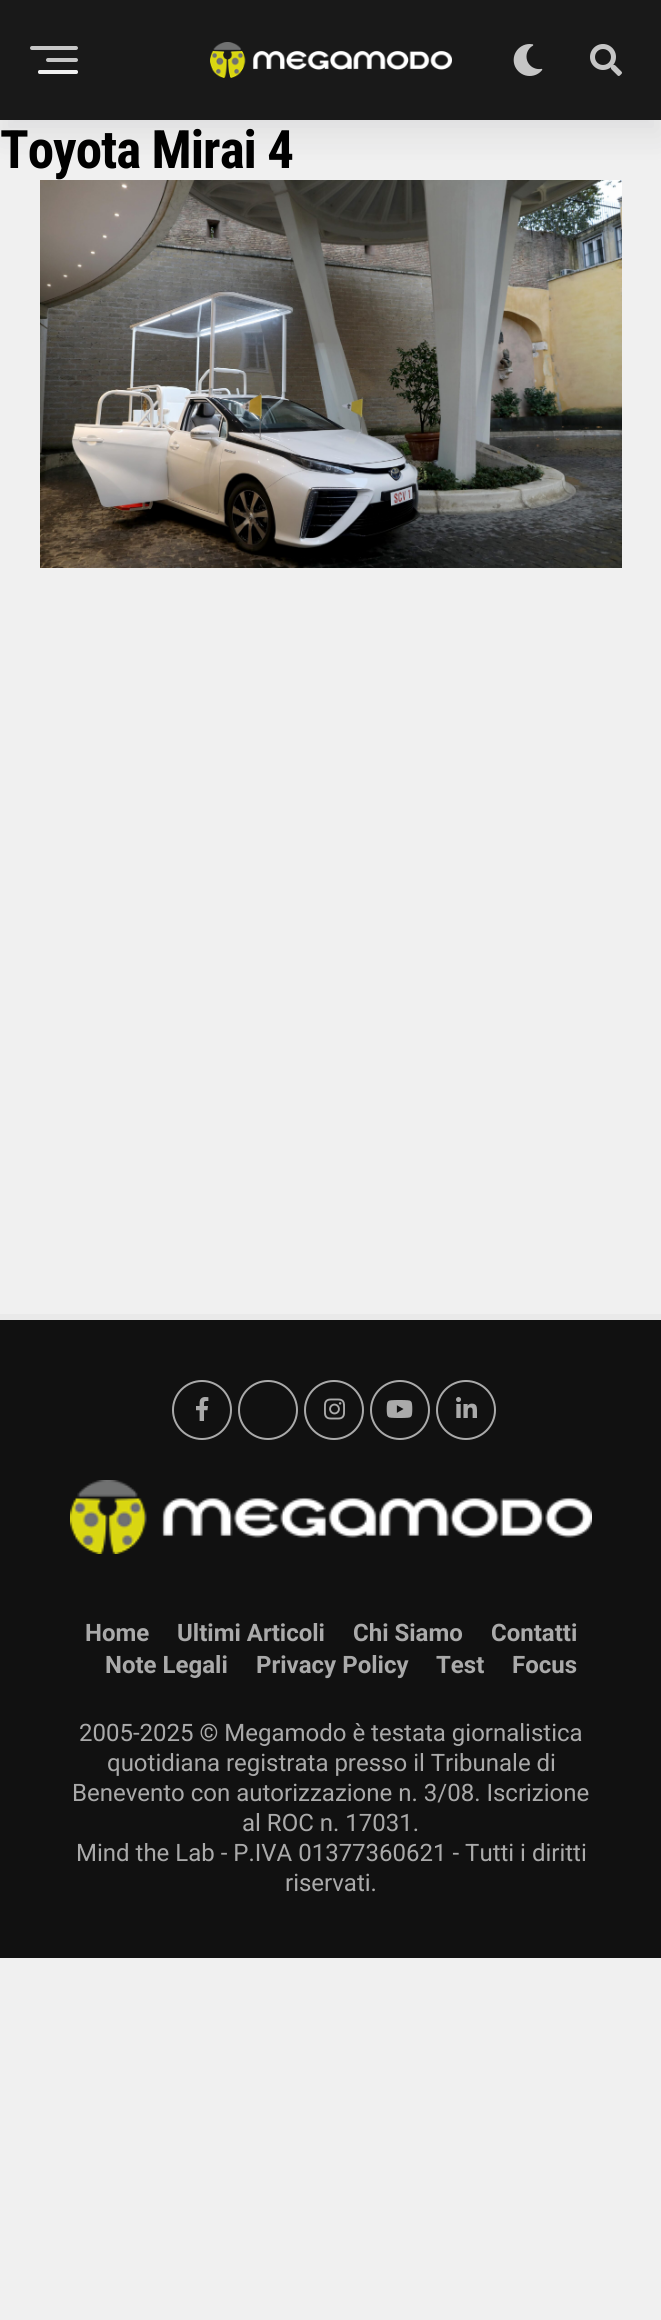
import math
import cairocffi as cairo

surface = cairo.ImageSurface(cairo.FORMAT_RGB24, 661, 2320)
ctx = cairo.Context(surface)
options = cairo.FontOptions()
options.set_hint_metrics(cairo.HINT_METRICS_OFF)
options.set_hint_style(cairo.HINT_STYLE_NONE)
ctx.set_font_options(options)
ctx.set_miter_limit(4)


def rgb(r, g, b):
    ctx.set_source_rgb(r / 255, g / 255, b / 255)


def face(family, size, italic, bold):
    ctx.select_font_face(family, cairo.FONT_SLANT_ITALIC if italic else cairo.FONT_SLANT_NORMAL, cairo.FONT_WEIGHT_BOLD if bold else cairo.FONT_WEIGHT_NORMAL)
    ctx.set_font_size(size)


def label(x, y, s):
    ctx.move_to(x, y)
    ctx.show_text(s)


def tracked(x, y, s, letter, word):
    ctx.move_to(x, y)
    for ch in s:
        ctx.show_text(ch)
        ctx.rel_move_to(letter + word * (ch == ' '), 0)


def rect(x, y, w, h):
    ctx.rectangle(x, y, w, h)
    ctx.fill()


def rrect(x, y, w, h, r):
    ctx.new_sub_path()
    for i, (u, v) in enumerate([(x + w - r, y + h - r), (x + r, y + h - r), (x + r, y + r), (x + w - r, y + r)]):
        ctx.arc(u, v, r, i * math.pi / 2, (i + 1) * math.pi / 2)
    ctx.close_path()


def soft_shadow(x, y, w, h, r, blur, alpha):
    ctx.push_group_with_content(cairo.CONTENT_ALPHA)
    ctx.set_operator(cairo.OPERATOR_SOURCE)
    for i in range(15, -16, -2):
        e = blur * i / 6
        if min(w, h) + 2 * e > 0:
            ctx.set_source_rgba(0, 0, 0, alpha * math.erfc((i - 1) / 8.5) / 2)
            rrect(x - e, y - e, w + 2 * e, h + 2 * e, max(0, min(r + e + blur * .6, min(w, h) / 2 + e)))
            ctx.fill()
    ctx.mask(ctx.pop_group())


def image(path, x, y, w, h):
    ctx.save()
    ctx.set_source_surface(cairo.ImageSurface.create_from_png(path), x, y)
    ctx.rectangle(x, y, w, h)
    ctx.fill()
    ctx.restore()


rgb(240, 240, 240)
ctx.paint()
image('image3.png', 40, 180, 582, 388)
rgb(21, 21, 30)
soft_shadow(0, 16, 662, 120, 0, 16, 0.08)
rgb(25, 25, 25)
rect(0, 0, 661, 120)
rgb(198, 198, 198)
rrect(30, 46, 48, 4, 2)
ctx.fill()
rrect(46, 58, 32, 4, 2)
ctx.fill()
rrect(38, 70, 40, 4, 2)
ctx.fill()
ctx.set_source_rgba(1, 1, 1, 0.75)
rrect(38, 70, 40, 4, 2)
ctx.fill()
image('image0.png', 210, 42, 242, 36)
image('image1.png', 513, 44, 30, 32)
image('image2.png', 590, 44, 32, 32)
face('Roboto Condensed', 53, 0, 1)
rgb(0, 0, 0)
tracked(0, 168, 'Toyota Mirai 4', -1, 0)
rgb(17, 17, 17)
rect(0, 1320, 661, 638)
rgb(233, 233, 233)
rect(0, 1314, 661, 6)
ctx.new_path()
ctx.arc(202, 1410, 29, 0, 2 * math.pi)
rgb(170, 170, 170)
ctx.stroke()
image('image4.png', 196, 1397, 13, 24)
ctx.arc(268, 1410, 29, 0, 2 * math.pi)
ctx.stroke()
ctx.arc(334, 1410, 29, 0, 2 * math.pi)
ctx.stroke()
image('image5.png', 324, 1398, 21, 22)
ctx.arc(400, 1410, 29, 0, 2 * math.pi)
ctx.stroke()
image('image6.png', 386, 1400, 27, 18)
ctx.arc(466, 1410, 29, 0, 2 * math.pi)
ctx.stroke()
image('image7.png', 456, 1397, 21, 21)
image('image8.png', 70, 1480, 522, 74)
face('Roboto', 24, 0, 1)
label(85, 1641, 'Home')
label(177, 1641, 'Ultimi Articoli')
label(353, 1641, 'Chi Siamo')
label(491, 1641, 'Contatti')
label(105, 1673, 'Note Legali')
label(256, 1673, 'Privacy Policy')
label(436, 1673, 'Test')
label(512, 1673, 'Focus')
face('Roboto', 24, 0, 0)
label(79, 1741, '2005-2025 © Megamodo è testata giornalistica')
label(107, 1771, 'quotidiana registrata presso il Tribunale di')
label(72, 1801, 'Benevento con autorizzazione n. 3/08. Iscrizione')
label(242, 1831, 'al ROC n. 17031.')
label(76, 1861, 'Mind the Lab - P.IVA 01377360621 - Tutti i diritti')
label(285, 1891, 'riservati.')
surface.write_to_png('render.png')
